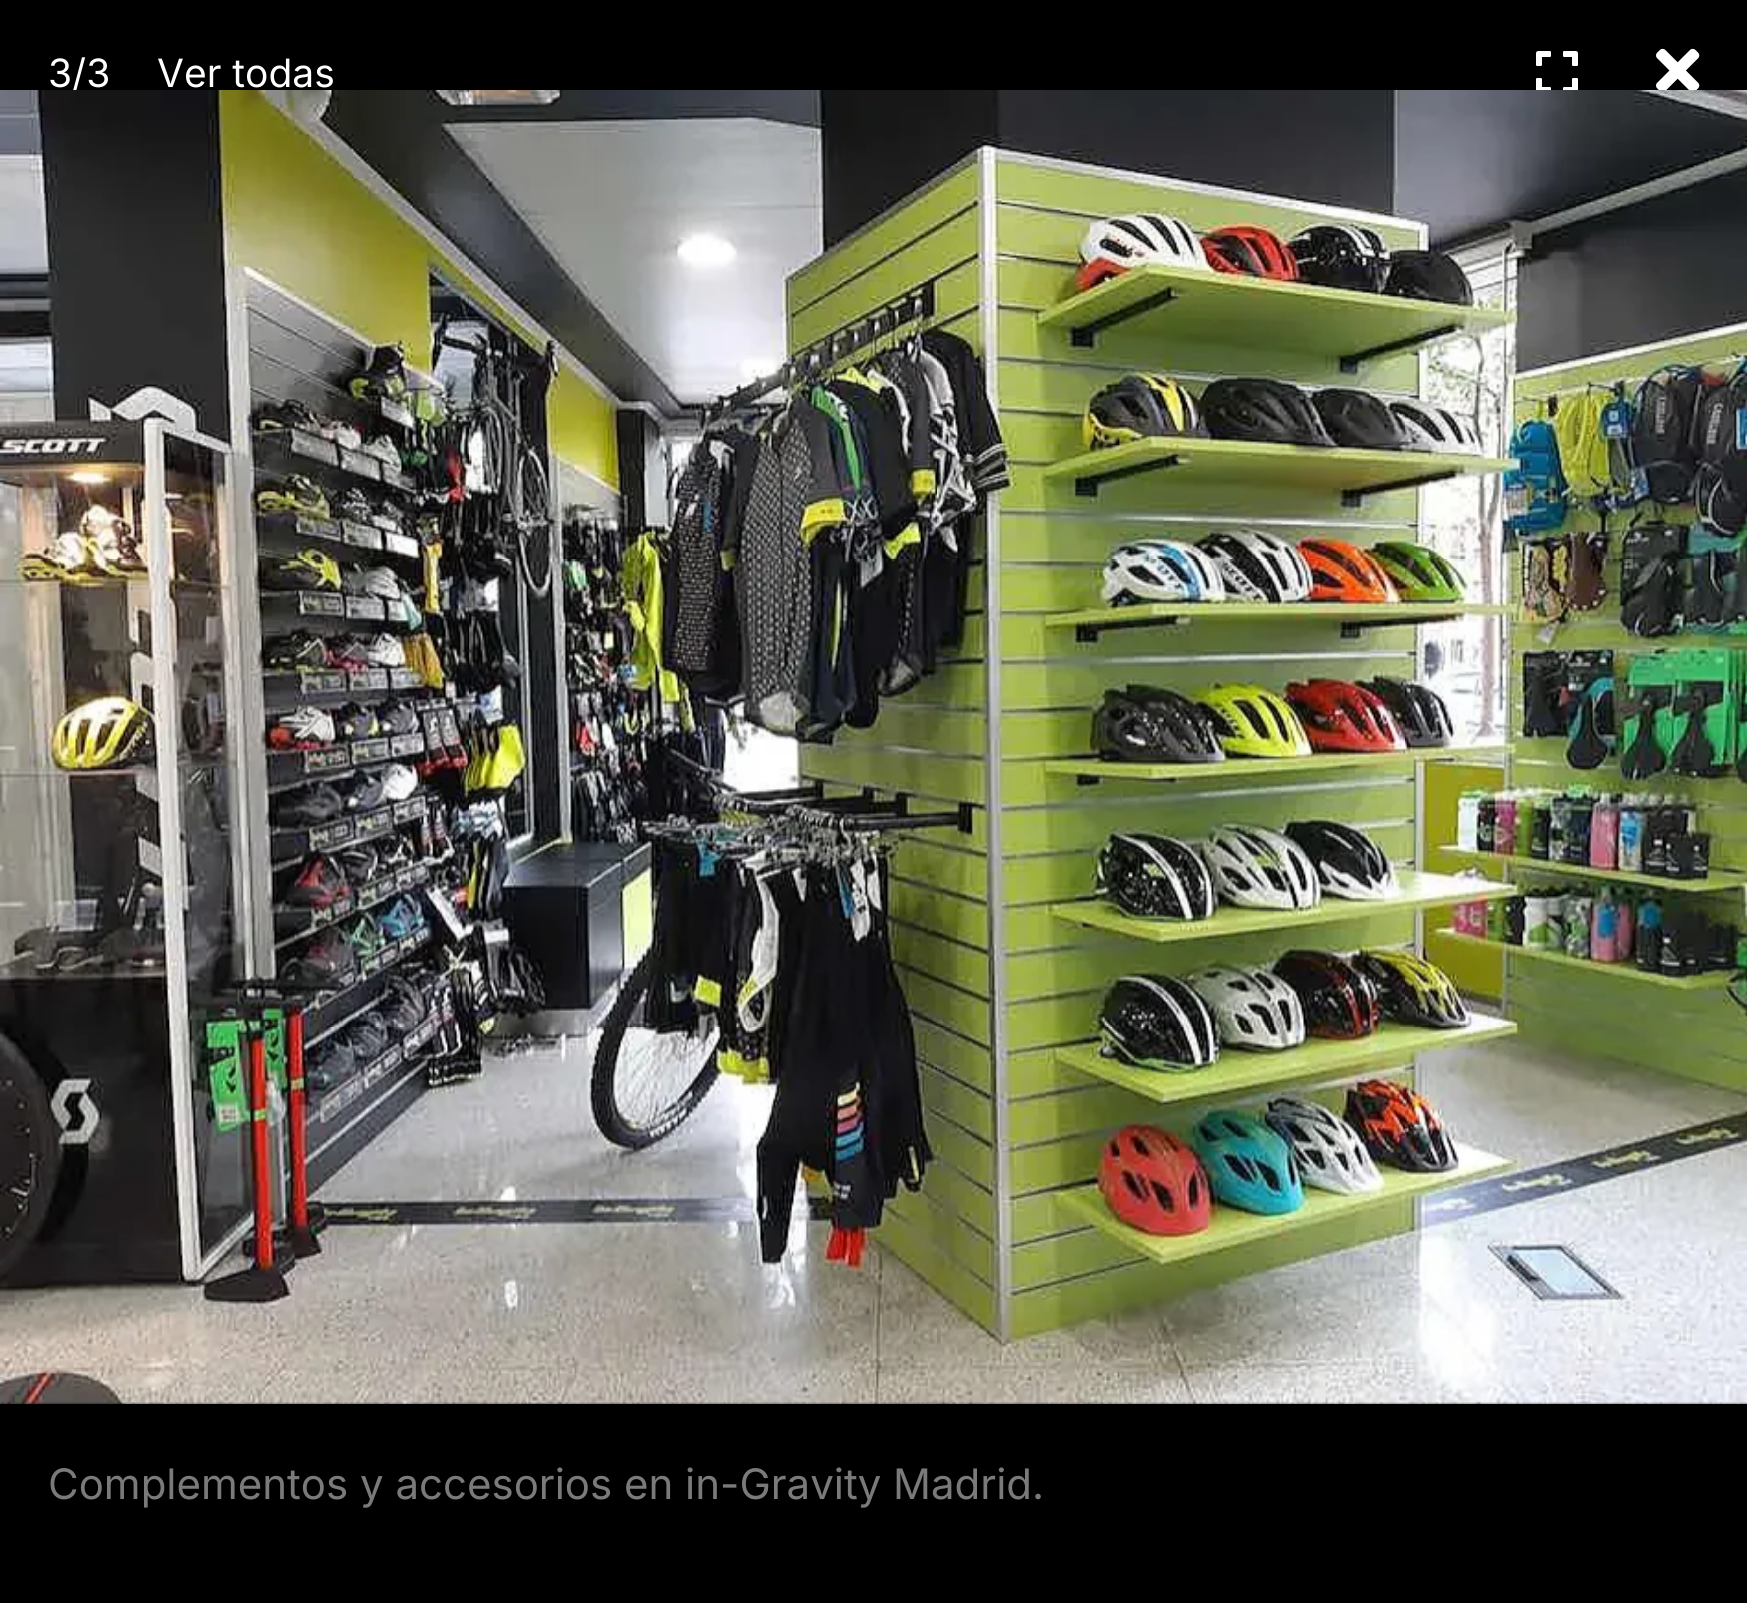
import math
import cairocffi as cairo

surface = cairo.ImageSurface(cairo.FORMAT_RGB24, 1747, 1603)
ctx = cairo.Context(surface)
options = cairo.FontOptions()
options.set_hint_metrics(cairo.HINT_METRICS_OFF)
options.set_hint_style(cairo.HINT_STYLE_NONE)
ctx.set_font_options(options)
ctx.set_miter_limit(4)


def rgb(r, g, b):
    ctx.set_source_rgb(r / 255, g / 255, b / 255)


def face(family, size, italic, bold):
    ctx.select_font_face(family, cairo.FONT_SLANT_ITALIC if italic else cairo.FONT_SLANT_NORMAL, cairo.FONT_WEIGHT_BOLD if bold else cairo.FONT_WEIGHT_NORMAL)
    ctx.set_font_size(size)


def label(x, y, s):
    ctx.move_to(x, y)
    ctx.show_text(s)


def image(path, x, y, w, h):
    ctx.save()
    ctx.set_source_surface(cairo.ImageSurface.create_from_png(path), x, y)
    ctx.rectangle(x, y, w, h)
    ctx.fill()
    ctx.restore()


rgb(0, 0, 0)
ctx.paint()
face('Inter', 39, 0, 0)
rgb(255, 255, 255)
label(48, 87, '3/3')
label(157, 87, 'Ver todas')
image('image0.png', 1536, 51, 42, 39)
image('image1.png', 1656, 48, 44, 42)
image('image2.png', 0, 90, 1747, 1314)
face('Inter', 42, 0, 0)
rgb(122, 122, 122)
label(48, 1499, 'Complementos y accesorios en in-Gravity Madrid.')
surface.write_to_png('render.png')
